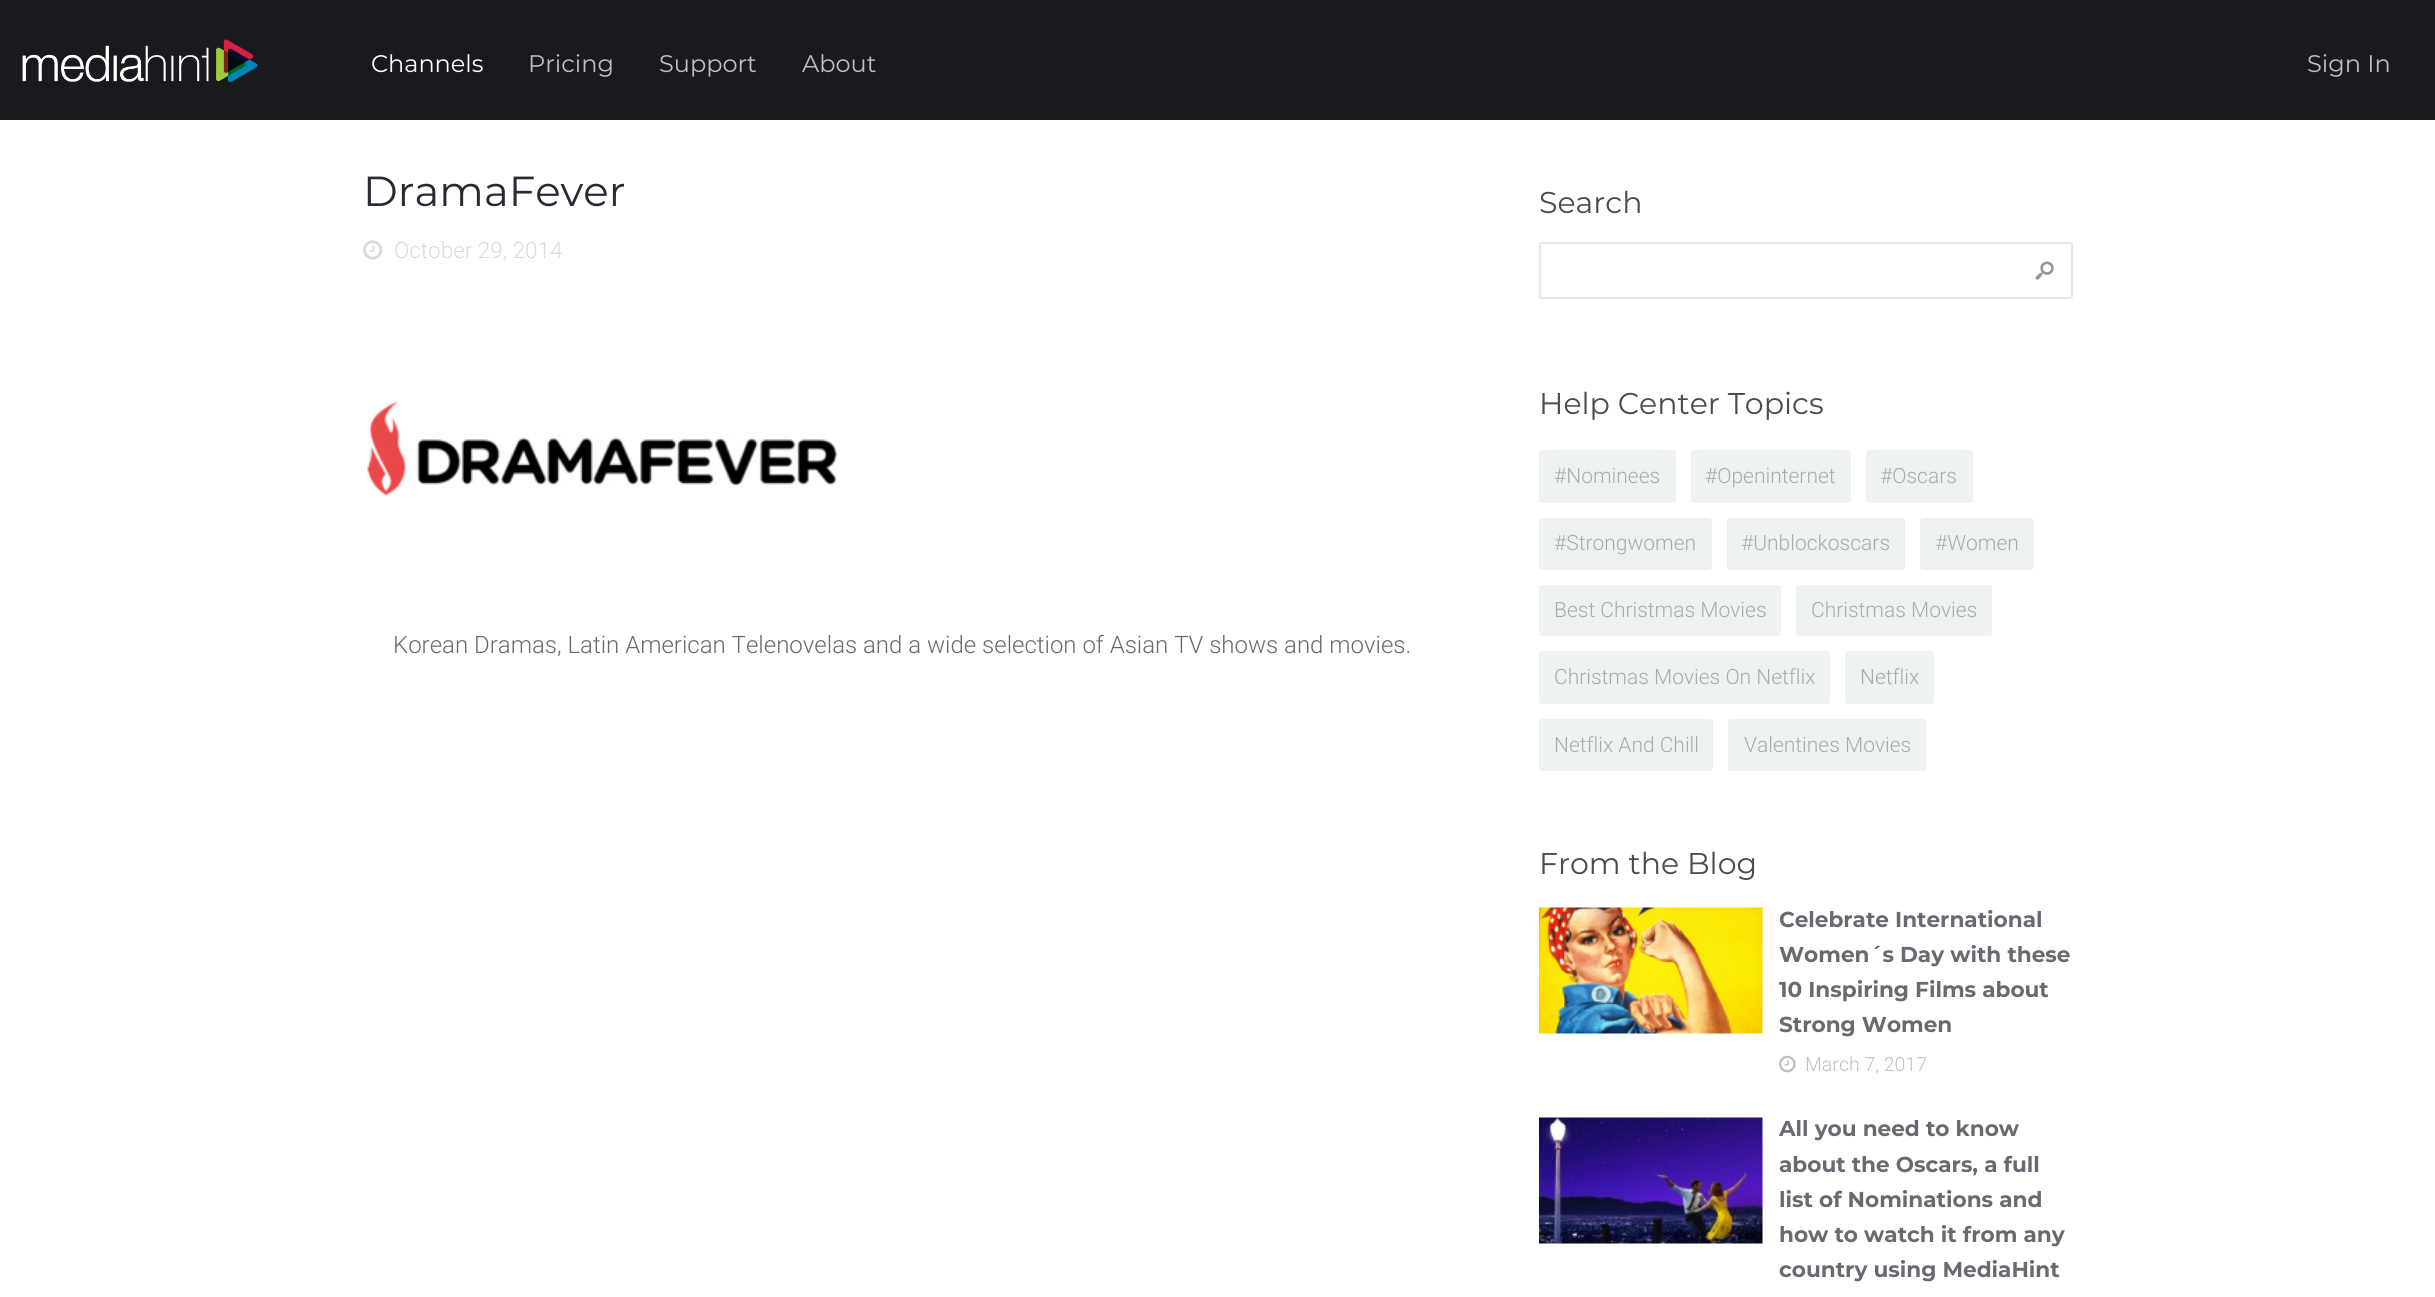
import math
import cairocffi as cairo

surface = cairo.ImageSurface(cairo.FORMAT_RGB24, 2435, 1297)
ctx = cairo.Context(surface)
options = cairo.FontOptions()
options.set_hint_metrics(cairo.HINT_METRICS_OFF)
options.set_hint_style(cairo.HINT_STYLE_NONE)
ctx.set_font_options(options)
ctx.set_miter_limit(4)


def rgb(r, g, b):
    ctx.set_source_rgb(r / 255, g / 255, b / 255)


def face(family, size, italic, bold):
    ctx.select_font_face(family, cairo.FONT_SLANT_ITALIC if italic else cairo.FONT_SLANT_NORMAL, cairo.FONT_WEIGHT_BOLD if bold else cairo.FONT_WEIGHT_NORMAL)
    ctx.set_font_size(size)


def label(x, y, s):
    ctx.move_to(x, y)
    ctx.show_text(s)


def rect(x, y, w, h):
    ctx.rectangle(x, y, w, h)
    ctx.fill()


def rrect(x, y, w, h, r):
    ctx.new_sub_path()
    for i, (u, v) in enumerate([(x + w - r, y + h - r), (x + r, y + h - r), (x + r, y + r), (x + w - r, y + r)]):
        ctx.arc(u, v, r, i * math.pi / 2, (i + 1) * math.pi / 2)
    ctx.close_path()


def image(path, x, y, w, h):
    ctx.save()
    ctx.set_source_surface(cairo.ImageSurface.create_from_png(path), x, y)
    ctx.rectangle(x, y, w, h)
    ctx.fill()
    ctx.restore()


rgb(255, 255, 255)
ctx.paint()
rgb(24, 26, 30)
rect(0, 0, 2435, 120)
image('image0.png', 22, 39, 236, 44)
face('Montserrat', 24, 0, 0)
rgb(255, 255, 255)
label(371, 72, 'Channels')
rgb(190, 191, 194)
label(528, 72, 'Pricing')
label(659, 72, 'Support')
label(802, 72, 'About')
label(2307, 72, 'Sign In')
face('Montserrat', 42, 0, 0)
rgb(38, 42, 51)
label(363, 206, 'DramaFever')
image('image1.png', 363, 240, 20, 20)
face('Roboto Light', 22.5, 0, 0)
rgb(217, 218, 218)
label(394, 258, 'October 29, 2014')
image('image2.png', 367, 400, 471, 97)
face('Roboto Light', 24, 0, 0)
rgb(103, 106, 112)
label(393, 653, 'Korean Dramas, Latin American Telenovelas and a wide selection of Asian TV shows and movies.')
face('Montserrat', 30, 0, 0)
rgb(75, 77, 75)
label(1539, 213, 'Search')
rrect(1540, 243, 532, 55, 2)
rgb(231, 231, 231)
ctx.stroke()
image('image3.png', 2035, 261, 19, 19)
rgb(75, 77, 75)
label(1539, 414, 'Help Center Topics')
rgb(239, 242, 243)
rrect(1539, 450, 137, 53, 3)
ctx.fill()
face('Roboto Light', 21, 0, 0)
rgb(170, 170, 170)
label(1554, 483, '#Nominees')
rgb(239, 242, 243)
rrect(1691, 450, 160, 53, 3)
ctx.fill()
rgb(170, 170, 170)
label(1705, 483, '#Openinternet')
rgb(239, 242, 243)
rrect(1866, 450, 107, 53, 3)
ctx.fill()
rgb(170, 170, 170)
label(1880, 483, '#Oscars')
rgb(239, 242, 243)
rrect(1539, 518, 173, 52, 3)
ctx.fill()
rgb(170, 170, 170)
label(1554, 550, '#Strongwomen')
rgb(239, 242, 243)
rrect(1727, 518, 178, 52, 3)
ctx.fill()
rgb(170, 170, 170)
label(1741, 550, '#Unblockoscars')
rgb(239, 242, 243)
rrect(1920, 518, 114, 52, 3)
ctx.fill()
rgb(170, 170, 170)
label(1935, 550, '#Women')
rgb(239, 242, 243)
rrect(1539, 585, 242, 51, 3)
ctx.fill()
rgb(170, 170, 170)
label(1554, 617, 'Best Christmas Movies')
rgb(239, 242, 243)
rrect(1796, 585, 196, 51, 3)
ctx.fill()
rgb(170, 170, 170)
label(1811, 617, 'Christmas Movies')
rgb(239, 242, 243)
rrect(1539, 651, 291, 53, 3)
ctx.fill()
rgb(170, 170, 170)
label(1554, 684, 'Christmas Movies On Netflix')
rgb(239, 242, 243)
rrect(1845, 651, 89, 53, 3)
ctx.fill()
rgb(170, 170, 170)
label(1860, 684, 'Netflix')
rgb(239, 242, 243)
rrect(1539, 719, 174, 52, 3)
ctx.fill()
rgb(170, 170, 170)
label(1554, 752, 'Netflix And Chill')
rgb(239, 242, 243)
rrect(1728, 719, 198, 52, 3)
ctx.fill()
rgb(170, 170, 170)
label(1744, 752, 'Valentines Movies')
face('Montserrat', 30, 0, 0)
rgb(75, 77, 75)
label(1539, 874, 'From the Blog')
image('image4.png', 1539, 907, 224, 127)
face('Montserrat', 21.6, 0, 1)
rgb(103, 106, 112)
label(1779, 927, 'Celebrate International')
label(1779, 962, 'Women´s Day with these')
label(1779, 997, '10 Inspiring Films about')
label(1779, 1032, 'Strong Women')
image('image5.png', 1779, 1055, 17, 18)
face('Roboto Light', 19.5, 0, 0)
rgb(190, 191, 194)
label(1805, 1071, 'March 7, 2017')
image('image6.png', 1539, 1117, 224, 127)
face('Montserrat', 21.6, 0, 1)
rgb(103, 106, 112)
label(1779, 1136, 'All you need to know')
label(1779, 1172, 'about the Oscars, a full')
label(1779, 1207, 'list of Nominations and')
label(1779, 1242, 'how to watch it from any')
label(1779, 1277, 'country using MediaHint')
surface.write_to_png('render.png')
